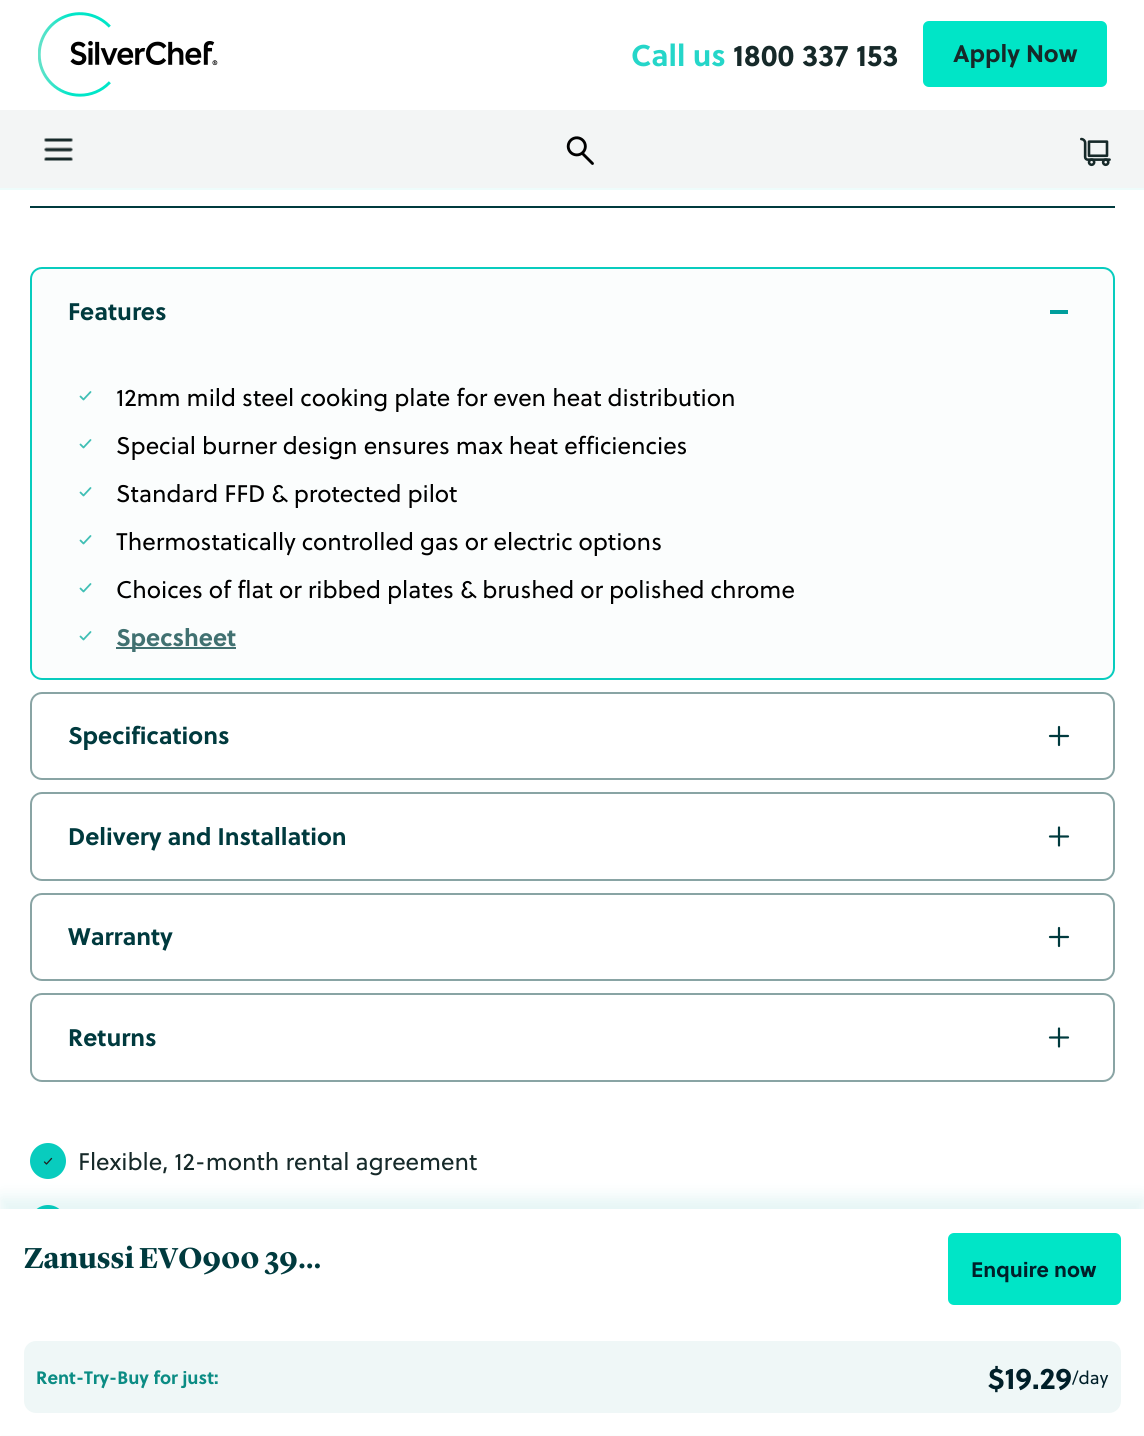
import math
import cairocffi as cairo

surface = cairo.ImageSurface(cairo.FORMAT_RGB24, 1144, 1436)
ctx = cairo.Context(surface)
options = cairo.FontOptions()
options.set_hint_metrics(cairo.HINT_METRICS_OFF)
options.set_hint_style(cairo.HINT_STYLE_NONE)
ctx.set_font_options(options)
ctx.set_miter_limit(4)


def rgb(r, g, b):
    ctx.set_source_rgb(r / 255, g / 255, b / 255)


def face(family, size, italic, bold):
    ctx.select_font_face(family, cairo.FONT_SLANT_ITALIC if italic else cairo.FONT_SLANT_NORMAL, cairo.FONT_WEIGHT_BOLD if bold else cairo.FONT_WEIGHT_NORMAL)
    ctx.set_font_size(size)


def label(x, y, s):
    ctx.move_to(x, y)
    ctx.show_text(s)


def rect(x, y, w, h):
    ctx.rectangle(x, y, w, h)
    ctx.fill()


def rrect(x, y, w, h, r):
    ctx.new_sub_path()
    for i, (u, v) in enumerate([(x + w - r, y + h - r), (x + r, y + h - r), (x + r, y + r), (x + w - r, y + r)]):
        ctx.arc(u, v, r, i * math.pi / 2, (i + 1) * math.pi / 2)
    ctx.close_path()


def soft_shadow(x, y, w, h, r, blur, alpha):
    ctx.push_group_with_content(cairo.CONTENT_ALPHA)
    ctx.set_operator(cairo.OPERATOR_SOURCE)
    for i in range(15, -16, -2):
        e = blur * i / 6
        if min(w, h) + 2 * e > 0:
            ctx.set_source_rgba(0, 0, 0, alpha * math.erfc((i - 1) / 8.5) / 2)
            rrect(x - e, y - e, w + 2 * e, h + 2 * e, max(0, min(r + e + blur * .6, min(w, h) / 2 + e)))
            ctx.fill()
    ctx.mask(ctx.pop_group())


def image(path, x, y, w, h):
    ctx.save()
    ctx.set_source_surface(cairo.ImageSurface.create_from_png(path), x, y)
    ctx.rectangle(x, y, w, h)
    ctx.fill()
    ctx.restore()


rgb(255, 255, 255)
ctx.paint()
rgb(238, 252, 251)
rect(0, 188, 1144, 2)
image('image0.png', 38, 12, 180, 85)
face('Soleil', 30, 0, 1)
rgb(37, 214, 201)
label(631, 66, 'Call us')
rgb(22, 41, 41)
label(733, 66, '1800 337 153')
rgb(0, 229, 199)
rrect(923, 21, 184, 66, 6)
ctx.fill()
face('Soleil', 24, 0, 1)
rgb(22, 41, 41)
label(953, 62, 'Apply Now')
rgb(243, 245, 245)
rect(0, 110, 1144, 78)
image('image1.png', 44, 138, 29, 23)
image('image2.png', 566, 136, 28, 29)
image('image3.png', 1080, 137, 31, 30)
rgb(8, 204, 190)
ctx.arc(48, 1161, 18, 0, 2 * math.pi)
ctx.fill()
ctx.arc(48, 1223, 18, 0, 2 * math.pi)
ctx.fill()
rgb(0, 158, 156)
soft_shadow(0, 1197, 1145, 228, 0, 7.5, 0.1)
rgb(255, 255, 255)
rect(0, 1209, 1144, 226)
face('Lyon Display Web', 30, 0, 1)
rgb(0, 58, 62)
label(24, 1268, 'Zanussi EVO900 39…')
rgb(0, 229, 199)
rrect(948, 1233, 173, 72, 6)
ctx.fill()
face('Soleil', 21, 0, 1)
rgb(0, 31, 41)
label(971, 1277, 'Enquire now')
rgb(239, 247, 247)
rrect(24, 1341, 1097, 72, 12)
ctx.fill()
face('Soleil', 18, 0, 1)
rgb(11, 140, 132)
label(36, 1384, 'Rent-Try-Buy for just:')
face('Soleil', 30, 0, 1)
rgb(0, 31, 41)
label(988, 1389, '$19.29')
face('Soleil', 18, 0, 0)
label(1072, 1384, '/day')
rgb(0, 58, 62)
rect(30, 206, 1085, 2)
rgb(251, 253, 253)
rrect(31, 268, 1083, 411, 11)
ctx.fill_preserve()
rgb(8, 204, 190)
ctx.stroke()
face('Soleil', 24, 0, 1)
rgb(0, 58, 62)
label(68, 320, 'Features')
rgb(0, 158, 156)
rect(1050, 310, 18, 4)
ctx.new_path()
ctx.move_to(80.5, 396.5)
ctx.line_to(83.5, 399.5)
ctx.line_to(90.5, 392)
ctx.move_to(80.5, 444.5)
ctx.line_to(83.5, 447.5)
ctx.line_to(90.5, 440)
rgb(64, 191, 181)
ctx.set_line_width(1.8)
ctx.set_line_cap(cairo.LINE_CAP_ROUND)
ctx.set_line_join(cairo.LINE_JOIN_ROUND)
ctx.stroke()
face('Soleil', 24, 0, 0)
rgb(0, 0, 0)
label(116, 406, '12mm mild steel cooking plate for even heat distribution')
label(116, 454, 'Special burner design ensures max heat efficiencies')
ctx.new_path()
ctx.move_to(80.5, 492.5)
ctx.line_to(83.5, 495.5)
ctx.line_to(90.5, 488)
ctx.move_to(80.5, 540.5)
ctx.line_to(83.5, 543.5)
ctx.line_to(90.5, 536)
rgb(64, 191, 181)
ctx.stroke()
rgb(0, 0, 0)
label(116, 502, 'Standard FFD & protected pilot')
label(116, 550, 'Thermostatically controlled gas or electric options')
ctx.new_path()
ctx.move_to(80.5, 588.5)
ctx.line_to(83.5, 591.5)
ctx.line_to(90.5, 584)
ctx.move_to(80.5, 636.5)
ctx.line_to(83.5, 639.5)
ctx.line_to(90.5, 632)
rgb(64, 191, 181)
ctx.stroke()
rgb(0, 0, 0)
label(116, 598, 'Choices of flat or ribbed plates & brushed or polished chrome')
rgb(65, 113, 113)
rect(116, 647, 120, 2)
face('Soleil', 24, 0, 1)
label(116, 646, 'Specsheet')
rrect(31, 693, 1083, 86, 11)
rgb(137, 164, 164)
ctx.set_line_width(2)
ctx.set_line_cap(cairo.LINE_CAP_BUTT)
ctx.set_line_join(cairo.LINE_JOIN_MITER)
ctx.stroke()
rgb(0, 58, 62)
label(68, 744, 'Specifications')
ctx.new_path()
ctx.move_to(1050, 736)
ctx.line_to(1059, 736)
ctx.move_to(1059, 736)
ctx.line_to(1068, 736)
ctx.move_to(1059, 736)
ctx.line_to(1059, 727)
ctx.move_to(1059, 736)
ctx.line_to(1059, 745)
ctx.set_line_width(2.2)
ctx.set_line_cap(cairo.LINE_CAP_ROUND)
ctx.set_line_join(cairo.LINE_JOIN_ROUND)
ctx.stroke()
rrect(31, 793, 1083, 87, 11)
rgb(137, 164, 164)
ctx.set_line_width(2)
ctx.set_line_cap(cairo.LINE_CAP_BUTT)
ctx.set_line_join(cairo.LINE_JOIN_MITER)
ctx.stroke()
rgb(0, 58, 62)
label(68, 845, 'Delivery and Installation')
ctx.new_path()
ctx.move_to(1050, 836.5)
ctx.line_to(1059, 836.5)
ctx.move_to(1059, 836.5)
ctx.line_to(1068, 836.5)
ctx.move_to(1059, 836.5)
ctx.line_to(1059, 827.5)
ctx.move_to(1059, 836.5)
ctx.line_to(1059, 845.5)
ctx.set_line_width(2.2)
ctx.set_line_cap(cairo.LINE_CAP_ROUND)
ctx.set_line_join(cairo.LINE_JOIN_ROUND)
ctx.stroke()
rrect(31, 894, 1083, 86, 11)
rgb(137, 164, 164)
ctx.set_line_width(2)
ctx.set_line_cap(cairo.LINE_CAP_BUTT)
ctx.set_line_join(cairo.LINE_JOIN_MITER)
ctx.stroke()
rgb(0, 58, 62)
label(68, 945, 'Warranty')
ctx.new_path()
ctx.move_to(1050, 937)
ctx.line_to(1059, 937)
ctx.move_to(1059, 937)
ctx.line_to(1068, 937)
ctx.move_to(1059, 937)
ctx.line_to(1059, 928)
ctx.move_to(1059, 937)
ctx.line_to(1059, 946)
ctx.set_line_width(2.2)
ctx.set_line_cap(cairo.LINE_CAP_ROUND)
ctx.set_line_join(cairo.LINE_JOIN_ROUND)
ctx.stroke()
rrect(31, 994, 1083, 87, 11)
rgb(137, 164, 164)
ctx.set_line_width(2)
ctx.set_line_cap(cairo.LINE_CAP_BUTT)
ctx.set_line_join(cairo.LINE_JOIN_MITER)
ctx.stroke()
rgb(0, 58, 62)
label(68, 1046, 'Returns')
ctx.new_path()
ctx.move_to(1050, 1037.5)
ctx.line_to(1059, 1037.5)
ctx.move_to(1059, 1037.5)
ctx.line_to(1068, 1037.5)
ctx.move_to(1059, 1037.5)
ctx.line_to(1059, 1028.5)
ctx.move_to(1059, 1037.5)
ctx.line_to(1059, 1046.5)
ctx.set_line_width(2.2)
ctx.set_line_cap(cairo.LINE_CAP_ROUND)
ctx.set_line_join(cairo.LINE_JOIN_ROUND)
ctx.stroke()
ctx.new_path()
ctx.move_to(44.5, 1162)
ctx.line_to(46.5, 1164)
ctx.line_to(51.5, 1158.5)
rgb(33, 33, 33)
ctx.set_line_width(1.3)
ctx.stroke()
face('Soleil', 24, 0, 0)
rgb(22, 41, 41)
label(78, 1170, 'Flexible, 12-month rental agreement')
surface.write_to_png('render.png')
